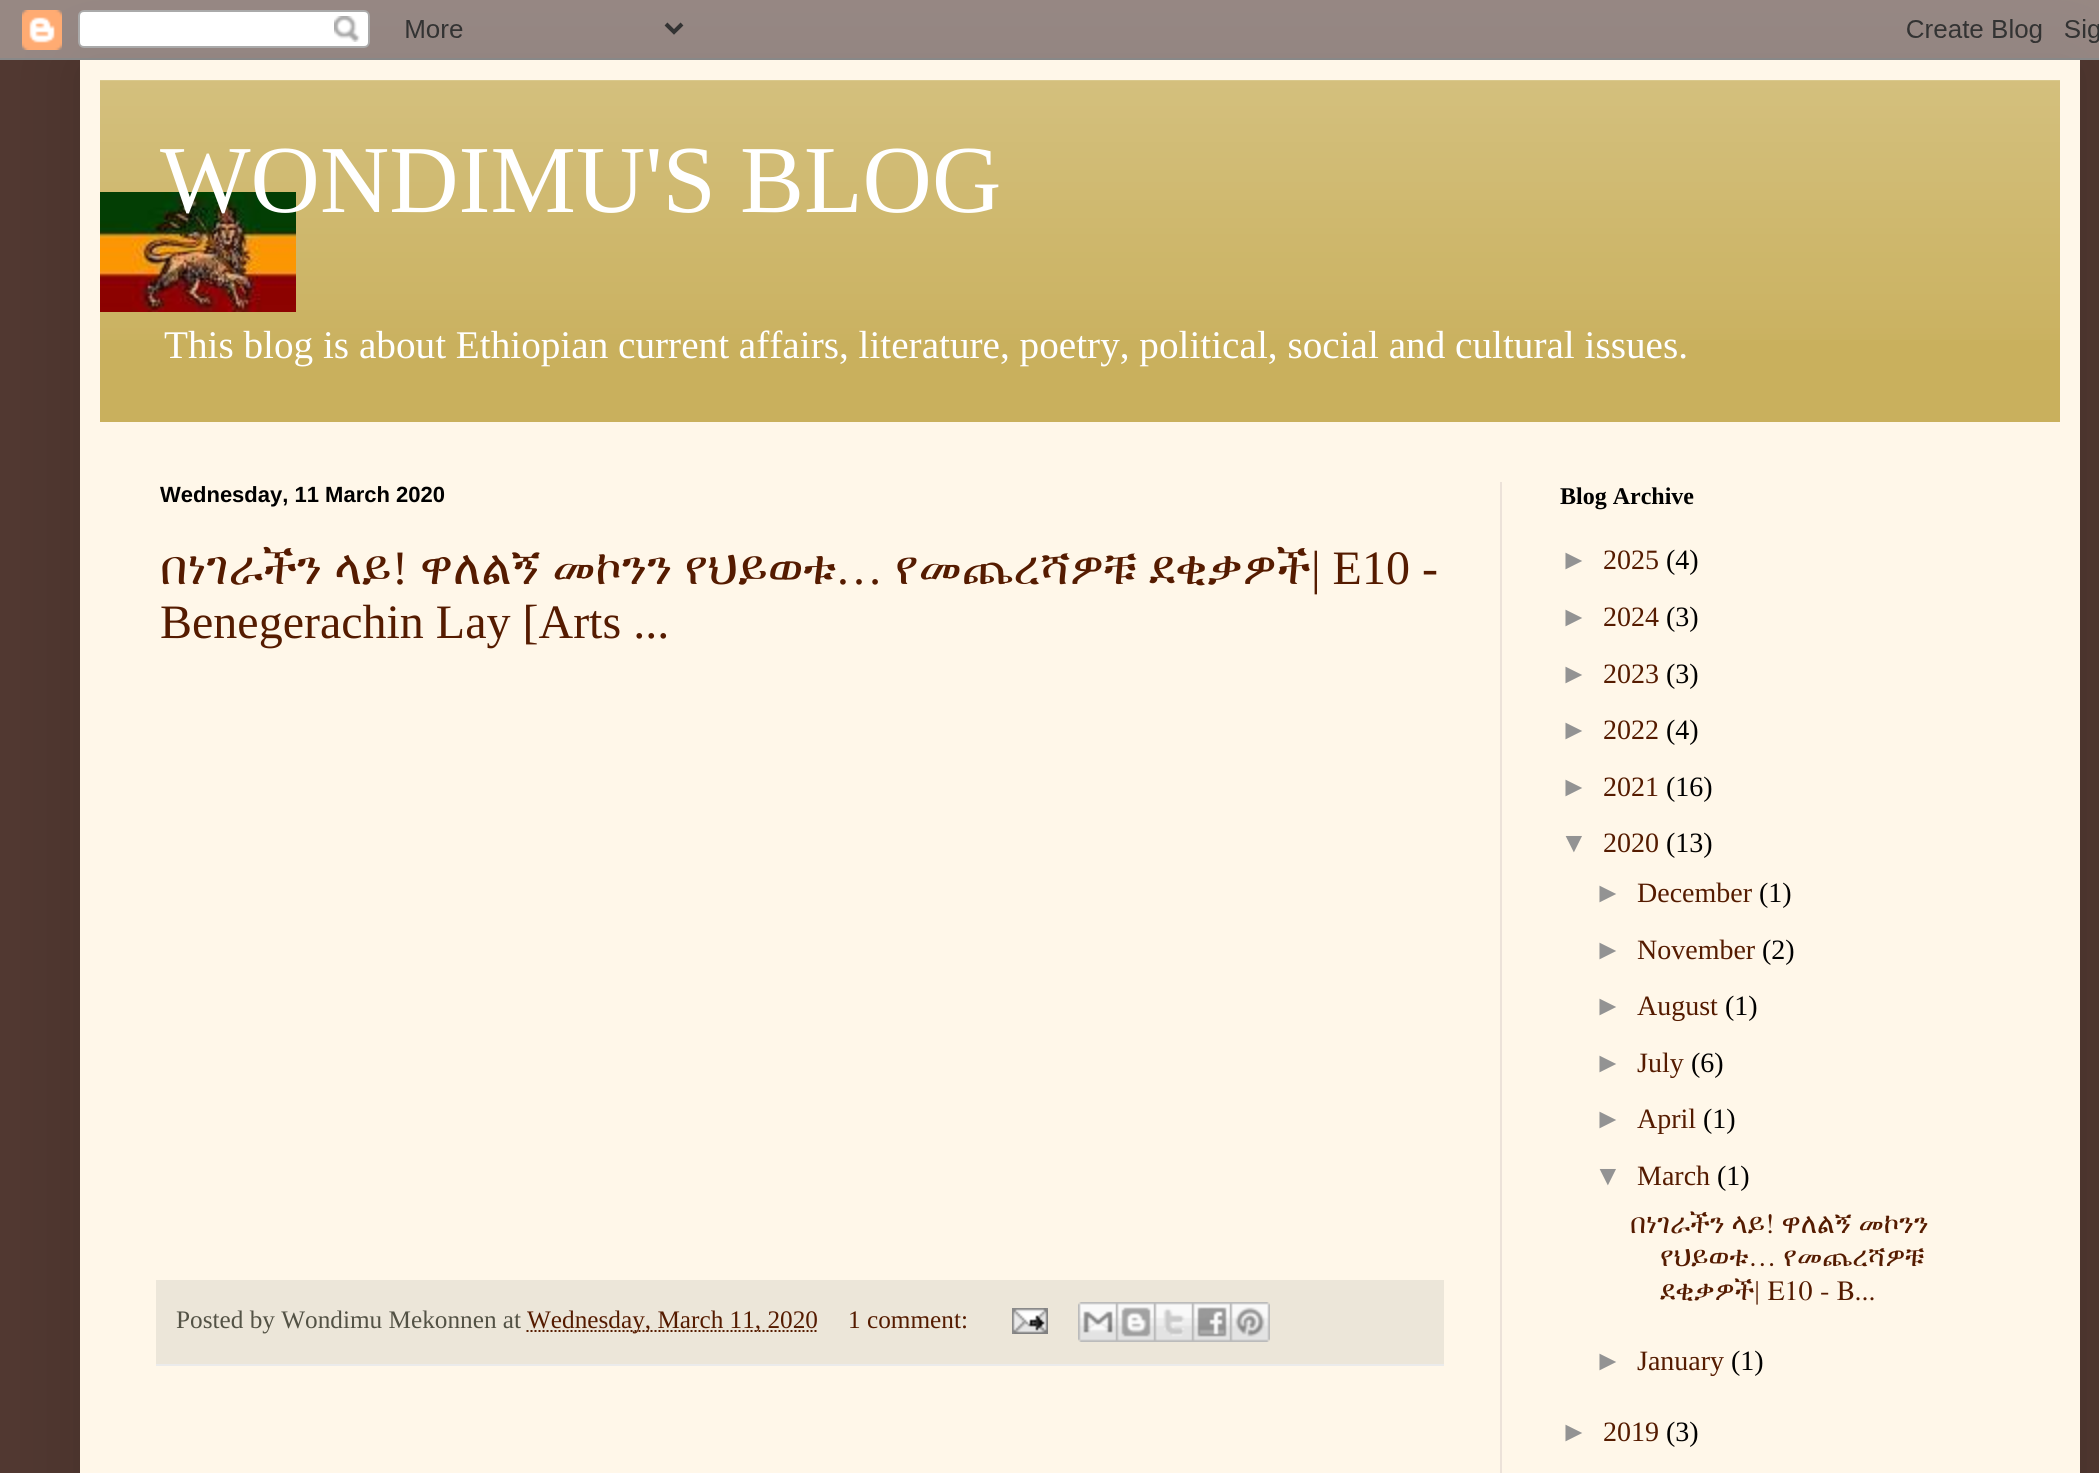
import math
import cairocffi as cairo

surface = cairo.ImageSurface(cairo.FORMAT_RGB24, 2099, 1473)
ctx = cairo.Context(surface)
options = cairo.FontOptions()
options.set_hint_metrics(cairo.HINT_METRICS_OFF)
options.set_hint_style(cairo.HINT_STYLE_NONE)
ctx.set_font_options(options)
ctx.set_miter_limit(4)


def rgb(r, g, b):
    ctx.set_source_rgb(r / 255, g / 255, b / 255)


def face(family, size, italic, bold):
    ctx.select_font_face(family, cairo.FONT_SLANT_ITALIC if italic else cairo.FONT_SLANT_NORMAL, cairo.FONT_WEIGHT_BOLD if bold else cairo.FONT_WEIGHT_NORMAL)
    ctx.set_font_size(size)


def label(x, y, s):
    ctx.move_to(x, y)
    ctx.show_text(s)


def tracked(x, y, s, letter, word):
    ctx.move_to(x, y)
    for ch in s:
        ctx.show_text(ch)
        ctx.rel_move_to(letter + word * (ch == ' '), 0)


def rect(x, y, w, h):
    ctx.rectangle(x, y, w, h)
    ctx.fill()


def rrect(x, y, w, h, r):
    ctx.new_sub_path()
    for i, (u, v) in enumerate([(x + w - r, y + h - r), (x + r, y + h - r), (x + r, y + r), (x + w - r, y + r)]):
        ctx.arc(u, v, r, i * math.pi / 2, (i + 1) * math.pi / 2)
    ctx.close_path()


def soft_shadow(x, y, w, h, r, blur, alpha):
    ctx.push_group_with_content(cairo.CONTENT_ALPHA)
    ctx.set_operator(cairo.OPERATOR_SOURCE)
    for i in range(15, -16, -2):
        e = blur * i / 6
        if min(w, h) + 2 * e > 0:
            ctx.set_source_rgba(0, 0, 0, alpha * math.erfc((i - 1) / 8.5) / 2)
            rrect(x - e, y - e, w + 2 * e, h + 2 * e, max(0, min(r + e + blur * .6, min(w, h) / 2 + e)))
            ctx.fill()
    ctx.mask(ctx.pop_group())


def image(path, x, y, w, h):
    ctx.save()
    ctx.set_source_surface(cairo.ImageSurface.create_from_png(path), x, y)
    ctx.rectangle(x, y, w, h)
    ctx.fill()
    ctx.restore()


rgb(81, 56, 49)
ctx.paint()
rgb(0, 0, 0)
soft_shadow(80, 60, 2000, 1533, 0, 40, 0.15)
image('image0.png', 0, 0, 2099, 60)
rgb(255, 247, 233)
rect(80, 60, 2000, 1413)
rgb(201, 176, 93)
rect(100, 80, 1960, 342)
image('image1.png', 100, 80, 1960, 260)
image('image2.png', 100, 192, 196, 120)
face('Liberation Serif', 96, 0, 0)
rgb(255, 255, 255)
label(160, 212, 'WONDIMU\'S BLOG')
face('Liberation Serif', 39.2, 0, 0)
label(164, 358, 'This blog is about Ethiopian current affairs, literature, poetry, political, social and cultural issues.')
rgb(236, 226, 217)
rect(1500, 482, 2, 991)
face('Liberation Sans', 22, 0, 1)
rgb(0, 0, 0)
label(160, 502, 'Wednesday, 11 March 2020')
face('FreeSerif', 48, 0, 0)
rgb(85, 27, 0)
label(160, 584, 'በነገራችን ላይ')
face('Liberation Serif', 48, 0, 0)
label(392, 584, '!')
face('FreeSerif', 48, 0, 0)
label(420, 584, 'ዋለልኝ መኮንን የህይወቱ')
face('Liberation Serif', 48, 0, 0)
label(835, 584, '…')
face('FreeSerif', 48, 0, 0)
label(895, 584, 'የመጨረሻዎቹ ደቂቃዎች')
face('Liberation Serif', 48, 0, 0)
label(1311, 584, '| E10 -')
label(160, 638, 'Benegerachin Lay [Arts ...')
rgb(236, 230, 217)
rect(156, 1280, 1288, 84)
rgb(235, 235, 235)
rect(156, 1364, 1288, 2)
face('Liberation Serif', 25.25, 0, 0)
rgb(83, 82, 69)
label(176, 1328, 'Posted by Wondimu Mekonnen at')
ctx.new_path()
ctx.move_to(526.5, 1331)
ctx.line_to(817, 1331)
rgb(85, 27, 0)
ctx.set_dash([2, 2])
ctx.stroke()
label(527, 1328, 'Wednesday, March 11, 2020')
label(848, 1328, '1 comment:')
image('image3.png', 1012, 1308, 36, 26)
image('image4.png', 1078, 1302, 38, 40)
image('image5.png', 1116, 1302, 38, 40)
image('image6.png', 1154, 1302, 38, 40)
image('image7.png', 1192, 1302, 38, 40)
image('image8.png', 1230, 1302, 40, 40)
face('Liberation Serif', 24, 0, 1)
rgb(0, 0, 0)
label(1560, 504, 'Blog Archive')
face('Liberation Sans', 28, 0, 0)
rgb(147, 147, 147)
label(1560, 569, '►')
face('Liberation Serif', 28, 0, 0)
rgb(85, 27, 0)
label(1603, 569, '2025')
rgb(0, 0, 0)
label(1666, 569, '(4)')
face('Liberation Sans', 28, 0, 0)
rgb(147, 147, 147)
label(1560, 626, '►')
face('Liberation Serif', 28, 0, 0)
rgb(85, 27, 0)
label(1603, 626, '2024')
rgb(0, 0, 0)
label(1666, 626, '(3)')
face('Liberation Sans', 28, 0, 0)
rgb(147, 147, 147)
label(1560, 683, '►')
face('Liberation Serif', 28, 0, 0)
rgb(85, 27, 0)
label(1603, 683, '2023')
rgb(0, 0, 0)
label(1666, 683, '(3)')
face('Liberation Sans', 28, 0, 0)
rgb(147, 147, 147)
label(1560, 739, '►')
face('Liberation Serif', 28, 0, 0)
rgb(85, 27, 0)
label(1603, 739, '2022')
rgb(0, 0, 0)
label(1666, 739, '(4)')
face('Liberation Sans', 28, 0, 0)
rgb(147, 147, 147)
label(1560, 796, '►')
face('Liberation Serif', 28, 0, 0)
rgb(85, 27, 0)
label(1603, 796, '2021')
rgb(0, 0, 0)
label(1666, 796, '(16)')
face('Liberation Sans', 28, 0, 0)
rgb(147, 147, 147)
label(1560, 852, '▼')
face('Liberation Serif', 28, 0, 0)
rgb(85, 27, 0)
label(1603, 852, '2020')
rgb(0, 0, 0)
label(1666, 852, '(13)')
face('Liberation Sans', 28, 0, 0)
rgb(147, 147, 147)
label(1594, 902, '►')
face('Liberation Serif', 28, 0, 0)
rgb(85, 27, 0)
label(1637, 902, 'December')
rgb(0, 0, 0)
label(1759, 902, '(1)')
face('Liberation Sans', 28, 0, 0)
rgb(147, 147, 147)
label(1594, 959, '►')
face('Liberation Serif', 28, 0, 0)
rgb(85, 27, 0)
label(1637, 959, 'November')
rgb(0, 0, 0)
label(1762, 959, '(2)')
face('Liberation Sans', 28, 0, 0)
rgb(147, 147, 147)
label(1594, 1015, '►')
face('Liberation Serif', 28, 0, 0)
rgb(85, 27, 0)
label(1637, 1015, 'August')
rgb(0, 0, 0)
label(1725, 1015, '(1)')
face('Liberation Sans', 28, 0, 0)
rgb(147, 147, 147)
label(1594, 1072, '►')
face('Liberation Serif', 28, 0, 0)
rgb(85, 27, 0)
label(1637, 1072, 'July')
rgb(0, 0, 0)
label(1691, 1072, '(6)')
face('Liberation Sans', 28, 0, 0)
rgb(147, 147, 147)
label(1594, 1128, '►')
face('Liberation Serif', 28, 0, 0)
rgb(85, 27, 0)
label(1637, 1128, 'April')
rgb(0, 0, 0)
label(1703, 1128, '(1)')
face('Liberation Sans', 28, 0, 0)
rgb(147, 147, 147)
label(1594, 1185, '▼')
face('Liberation Serif', 28, 0, 0)
rgb(85, 27, 0)
label(1637, 1185, 'March')
rgb(0, 0, 0)
label(1717, 1185, '(1)')
face('FreeSerif', 28, 0, 0)
rgb(85, 27, 0)
label(1630, 1233, 'በነገራችን ላይ! ዋለልኝ መኮንን')
label(1660, 1266, 'የህይወቱ… የመጨረሻዎቹ')
tracked(1660, 1300, 'ደቂቃዎች| E10 - B...', 0, 0.5)
face('Liberation Sans', 28, 0, 0)
rgb(147, 147, 147)
label(1594, 1370, '►')
face('Liberation Serif', 28, 0, 0)
rgb(85, 27, 0)
label(1637, 1370, 'January')
rgb(0, 0, 0)
label(1731, 1370, '(1)')
face('Liberation Sans', 28, 0, 0)
rgb(147, 147, 147)
label(1560, 1441, '►')
face('Liberation Serif', 28, 0, 0)
rgb(85, 27, 0)
label(1603, 1441, '2019')
rgb(0, 0, 0)
label(1666, 1441, '(3)')
surface.write_to_png('render.png')
